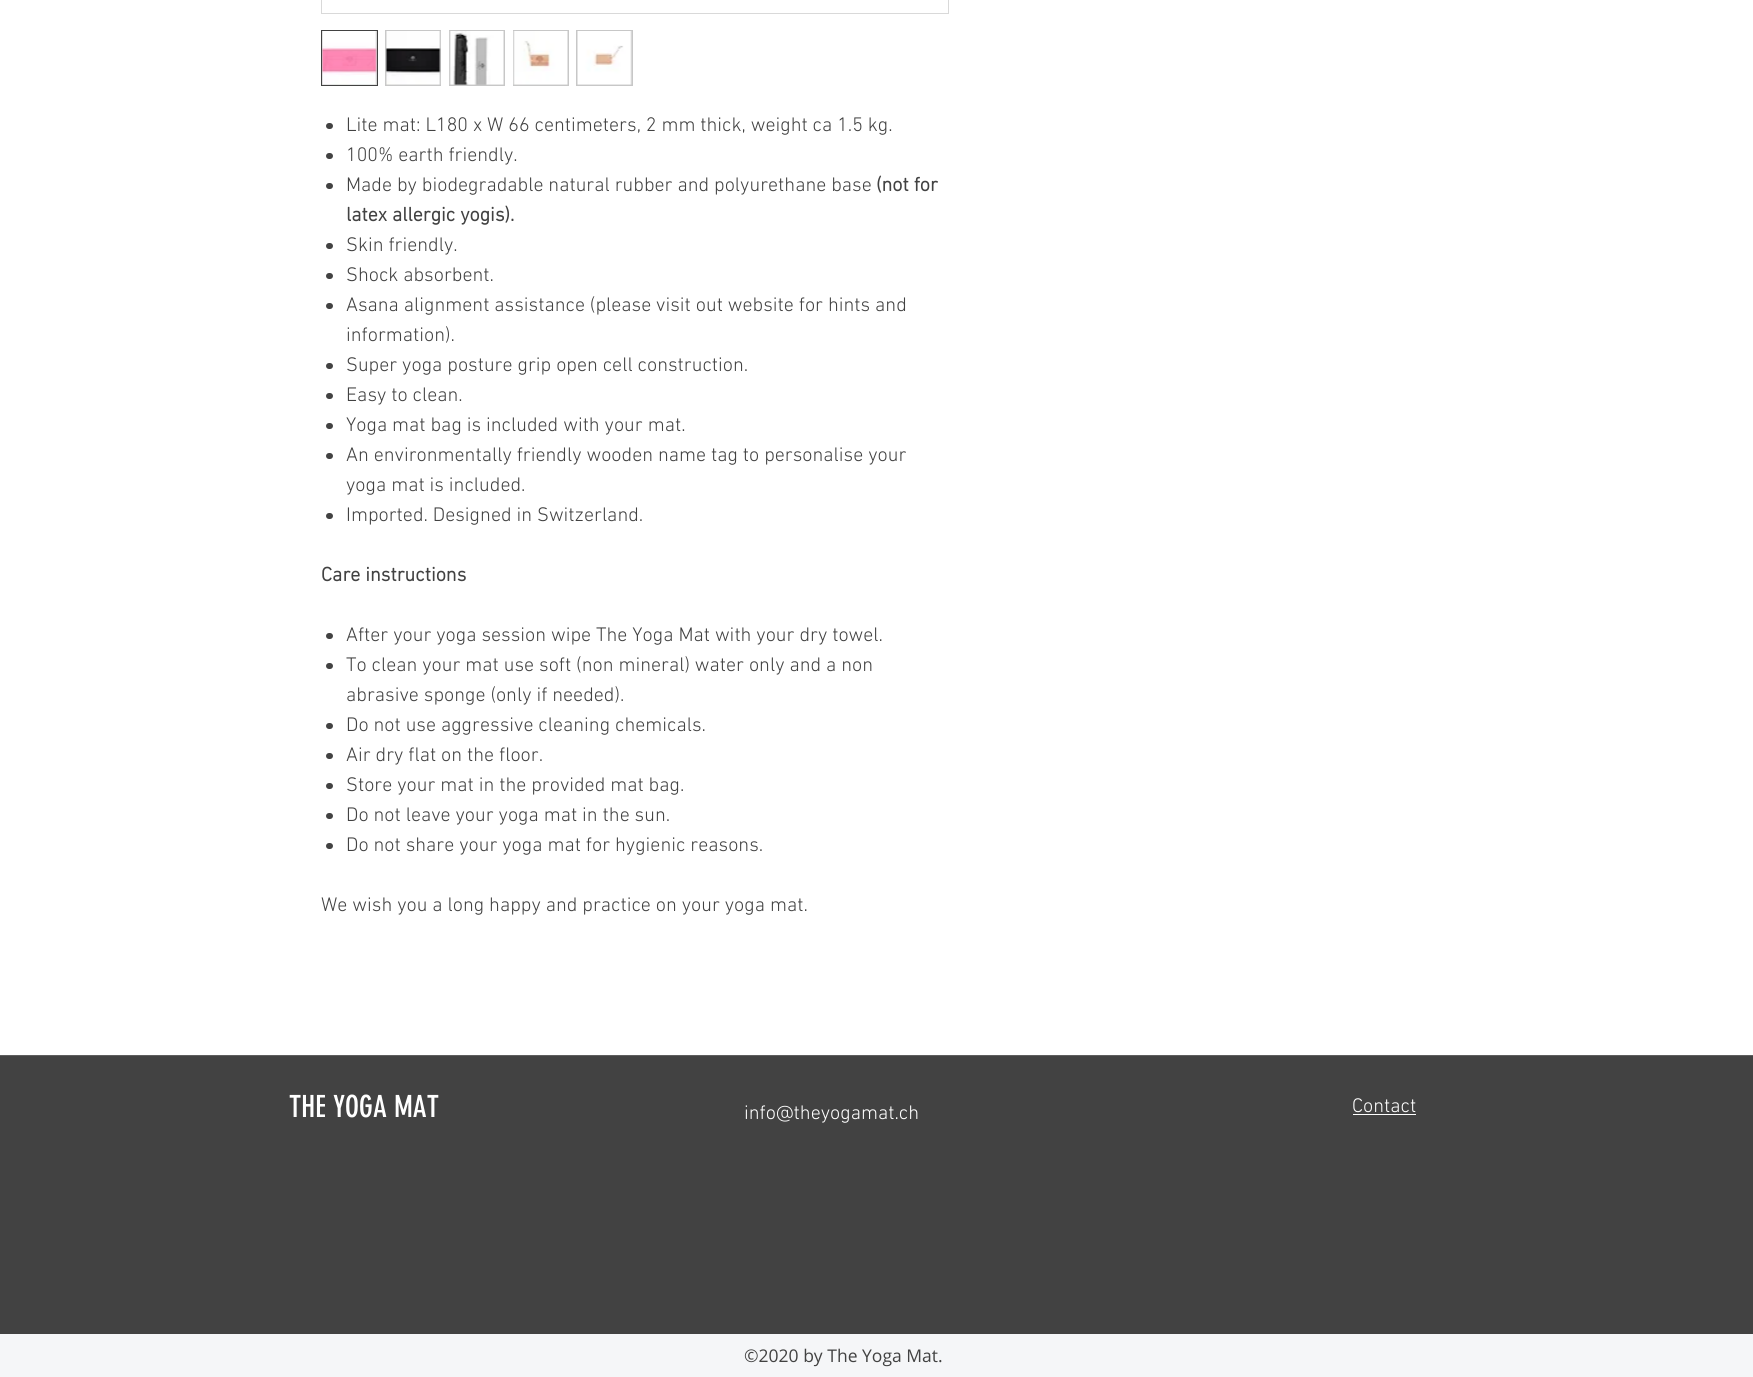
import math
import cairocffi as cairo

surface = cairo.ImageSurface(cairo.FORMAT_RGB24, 1753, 1377)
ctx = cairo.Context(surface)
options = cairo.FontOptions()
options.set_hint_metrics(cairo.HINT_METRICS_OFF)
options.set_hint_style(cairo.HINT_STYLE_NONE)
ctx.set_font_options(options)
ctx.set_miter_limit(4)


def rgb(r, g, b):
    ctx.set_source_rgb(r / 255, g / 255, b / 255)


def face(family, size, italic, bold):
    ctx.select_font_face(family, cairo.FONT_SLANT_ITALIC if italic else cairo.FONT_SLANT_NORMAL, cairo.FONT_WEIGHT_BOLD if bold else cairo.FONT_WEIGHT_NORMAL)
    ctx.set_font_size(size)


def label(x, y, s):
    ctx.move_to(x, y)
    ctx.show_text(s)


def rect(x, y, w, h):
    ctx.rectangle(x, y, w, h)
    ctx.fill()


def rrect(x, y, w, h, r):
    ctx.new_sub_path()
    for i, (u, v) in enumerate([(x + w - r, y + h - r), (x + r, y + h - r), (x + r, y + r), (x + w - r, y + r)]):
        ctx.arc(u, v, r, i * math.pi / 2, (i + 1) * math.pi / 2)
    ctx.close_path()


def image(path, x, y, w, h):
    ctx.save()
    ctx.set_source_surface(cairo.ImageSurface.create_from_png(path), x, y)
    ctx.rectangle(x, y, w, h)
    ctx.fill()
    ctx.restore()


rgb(255, 255, 255)
ctx.paint()
ctx.rectangle(321.5, -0.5, 627, 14)
rgb(217, 217, 217)
ctx.set_line_width(1)
ctx.stroke()
rgb(199, 199, 199)
ctx.rectangle(321.5, 30.5, 56, 55)
ctx.fill_preserve()
rgb(66, 66, 66)
ctx.stroke()
image('image0.png', 322, 31, 55, 54)
rgb(199, 199, 199)
rect(385, 30, 56, 56)
image('image1.png', 385, 31, 56, 54)
rect(449, 30, 56, 56)
image('image2.png', 449, 31, 55, 54)
rect(513, 30, 56, 56)
image('image3.png', 513, 31, 55, 54)
rect(576, 30, 57, 56)
image('image4.png', 577, 31, 55, 54)
rgb(66, 66, 66)
rrect(326, 123, 7, 6, 3)
ctx.fill()
face('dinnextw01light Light', 20, 0, 0)
label(346, 131, 'Lite mat: L180 x W 66 centimeters, 2 mm thick, weight ca 1.5 kg.')
rrect(326, 153, 7, 6, 3)
ctx.fill()
label(346, 161, '100% earth friendly.')
rrect(326, 183, 7, 6, 3)
ctx.fill()
label(346, 191, 'Made by biodegradable natural rubber and polyurethane base')
face('dinnextw01light', 20, 0, 1)
label(876, 191, '(not for')
label(346, 221, 'latex allergic yogis).')
rrect(326, 243, 7, 6, 3)
ctx.fill()
face('dinnextw01light Light', 20, 0, 0)
label(346, 251, 'Skin friendly.')
rrect(326, 273, 7, 6, 3)
ctx.fill()
label(346, 281, 'Shock absorbent.')
rrect(326, 303, 7, 6, 3)
ctx.fill()
label(346, 311, 'Asana alignment assistance (please visit out website for hints and')
label(346, 341, 'information).')
rrect(326, 363, 7, 6, 3)
ctx.fill()
label(346, 371, 'Super yoga posture grip open cell construction.')
rrect(326, 393, 7, 6, 3)
ctx.fill()
label(346, 401, 'Easy to clean.')
rrect(326, 423, 7, 6, 3)
ctx.fill()
label(346, 431, 'Yoga mat bag is included with your mat.')
rrect(326, 453, 7, 6, 3)
ctx.fill()
label(346, 461, 'An environmentally friendly wooden name tag to personalise your')
label(346, 491, 'yoga mat is included.')
rrect(326, 513, 7, 6, 3)
ctx.fill()
label(346, 521, 'Imported. Designed in Switzerland.')
face('dinnextw01light', 20, 0, 1)
label(321, 581, 'Care instructions')
rrect(326, 633, 7, 6, 3)
ctx.fill()
face('dinnextw01light Light', 20, 0, 0)
label(346, 641, 'After your yoga session wipe The Yoga Mat with your dry towel.')
rrect(326, 663, 7, 6, 3)
ctx.fill()
label(346, 671, 'To clean your mat use soft (non mineral) water only and a non')
label(346, 701, 'abrasive sponge (only if needed).')
rrect(326, 723, 7, 6, 3)
ctx.fill()
label(346, 731, 'Do not use aggressive cleaning chemicals.')
rrect(326, 753, 7, 6, 3)
ctx.fill()
label(346, 761, 'Air dry flat on the floor.')
rrect(326, 783, 7, 6, 3)
ctx.fill()
label(346, 791, 'Store your mat in the provided mat bag.')
rrect(326, 813, 7, 6, 3)
ctx.fill()
label(346, 821, 'Do not leave your yoga mat in the sun.')
rrect(326, 843, 7, 6, 3)
ctx.fill()
label(346, 851, 'Do not share your yoga mat for hygienic reasons.')
label(321, 911, 'We wish you a long happy and practice on your yoga mat.')
rect(0, 1056, 1753, 278)
rgb(94, 94, 94)
rect(0, 1055, 1753, 1)
face('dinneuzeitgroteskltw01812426', 30, 0, 0)
rgb(255, 255, 255)
label(289, 1117, 'THE YOGA MAT')
face('dinnextw01light Light', 20, 0, 0)
label(744, 1119, 'info@theyogamat.ch')
label(1352, 1112, 'Contact')
rect(1353, 1114, 63, 1)
rgb(245, 246, 248)
rect(0, 1334, 1753, 43)
face('Open Sans', 17.5, 0, 0)
rgb(66, 66, 66)
label(744, 1362, '©2020 by The Yoga Mat.')
surface.write_to_png('render.png')
